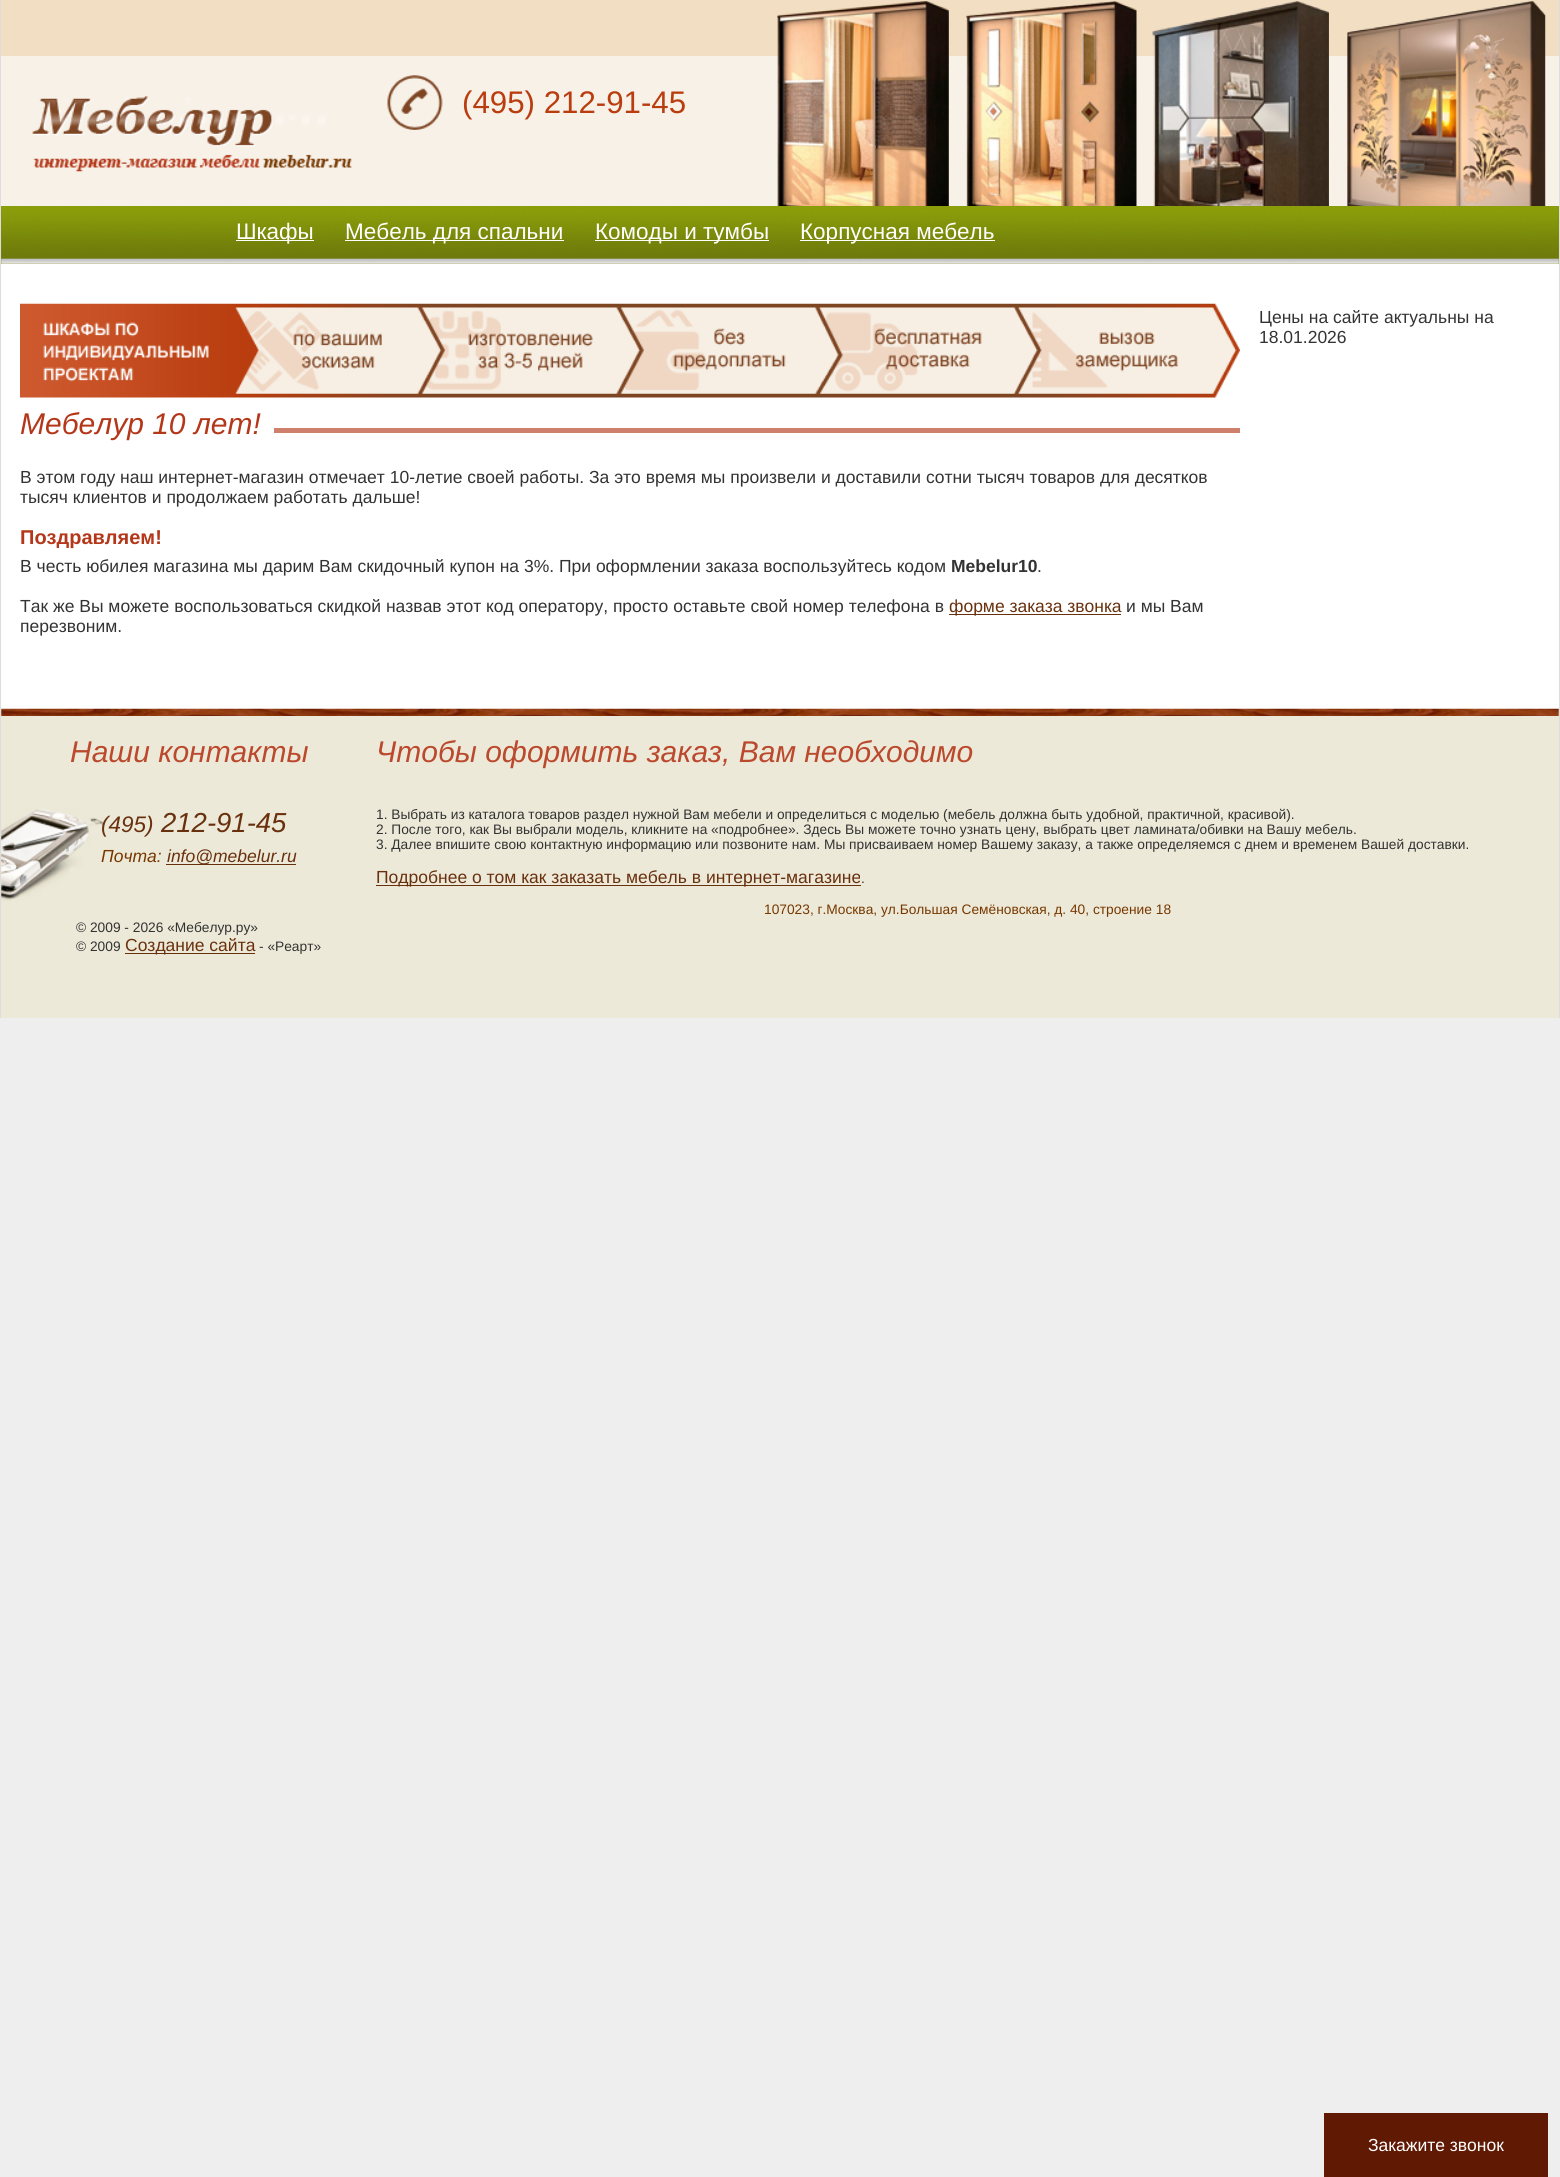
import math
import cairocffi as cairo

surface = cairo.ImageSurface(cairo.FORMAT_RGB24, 1560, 2177)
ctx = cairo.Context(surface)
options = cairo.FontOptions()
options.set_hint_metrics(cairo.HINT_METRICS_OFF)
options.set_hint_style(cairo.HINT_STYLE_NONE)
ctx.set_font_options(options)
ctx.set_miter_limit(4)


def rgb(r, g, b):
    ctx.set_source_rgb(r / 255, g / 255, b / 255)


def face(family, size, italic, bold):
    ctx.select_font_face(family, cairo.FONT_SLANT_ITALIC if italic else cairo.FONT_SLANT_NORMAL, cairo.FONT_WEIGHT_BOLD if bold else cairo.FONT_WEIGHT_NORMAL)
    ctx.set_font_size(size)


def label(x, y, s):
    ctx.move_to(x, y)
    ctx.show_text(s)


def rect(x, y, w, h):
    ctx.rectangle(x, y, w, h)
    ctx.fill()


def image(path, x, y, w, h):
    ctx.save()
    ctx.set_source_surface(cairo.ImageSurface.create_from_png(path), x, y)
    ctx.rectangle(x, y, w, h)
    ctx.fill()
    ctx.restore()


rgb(238, 238, 238)
ctx.paint()
rgb(255, 255, 255)
rect(1, 264, 1558, 452)
rgb(221, 221, 221)
rect(1559, 0, 1, 1018)
rect(0, 0, 1, 1018)
rgb(247, 241, 232)
rect(1, 56, 1558, 150)
rgb(241, 222, 195)
rect(1, 0, 1558, 56)
image('image0.png', 32, 96, 321, 76)
image('image1.png', 387, 75, 56, 55)
face('Liberation Sans', 31.25, 0, 0)
rgb(185, 61, 15)
label(462, 113, '(495) 212-91-45')
image('image2.png', 777, 1, 769, 205)
image('image3.png', 777, 1, 769, 205)
rgb(130, 146, 12)
rect(1, 206, 1558, 58)
image('image4.png', 1, 206, 1558, 58)
rgb(255, 255, 255)
rect(236, 240, 78, 1)
face('Liberation Sans', 22.5, 0, 0)
label(236, 239, 'Шкафы')
rect(345, 240, 219, 1)
label(345, 239, 'Мебель для спальни')
rect(595, 240, 174, 1)
label(595, 239, 'Комоды и тумбы')
rect(800, 240, 195, 1)
label(800, 239, 'Корпусная мебель')
image('image5.png', 1, 708, 1558, 8)
face('Liberation Sans', 17.5, 0, 0)
rgb(51, 51, 51)
label(1259, 323, 'Цены на сайте актуальны на')
label(1259, 343, '18.01.2026')
image('image6.png', 20, 303, 1220, 95)
rgb(206, 128, 108)
rect(274, 428, 966, 5)
face('Liberation Sans', 30, 1, 0)
rgb(180, 55, 25)
label(20, 434, 'Мебелур 10 лет!')
face('Liberation Sans', 17.5, 0, 0)
rgb(51, 51, 51)
label(20, 483, 'В этом году наш интернет-магазин отмечает 10-летие своей работы. За это время мы произвели и доставили сотни тысяч товаров для десятков')
label(20, 503, 'тысяч клиентов и продолжаем работать дальше!')
face('Liberation Sans', 20, 0, 1)
rgb(180, 55, 25)
label(20, 544, 'Поздравляем!')
face('Liberation Sans', 17.5, 0, 0)
rgb(51, 51, 51)
label(20, 572, 'В честь юбилея магазина мы дарим Вам скидочный купон на 3%. При оформлении заказа воспользуйтесь кодом')
face('Liberation Sans', 17.5, 0, 1)
label(951, 572, 'Mebelur10')
face('Liberation Sans', 17.5, 0, 0)
label(1037, 572, '.')
label(20, 612, 'Так же Вы можете воспользоваться скидкой назвав этот код оператору, просто оставьте свой номер телефона в')
rgb(105, 48, 14)
rect(949, 614, 172, 1)
label(949, 612, 'форме заказа звонка')
rgb(51, 51, 51)
label(1126, 612, 'и мы Вам')
label(20, 632, 'перезвоним.')
rgb(236, 233, 216)
rect(1, 716, 1558, 302)
face('Liberation Sans', 30, 1, 0)
rgb(187, 73, 46)
label(70, 762, 'Наши контакты')
image('image7.png', 1, 808, 104, 93)
face('Liberation Sans', 22.5, 1, 0)
rgb(105, 48, 14)
label(101, 832, '(495)')
face('Liberation Sans', 27.5, 1, 0)
label(161, 832, '212-91-45')
face('Liberation Sans', 17.5, 1, 0)
rgb(119, 56, 0)
label(101, 862, 'Почта:')
rgb(105, 48, 14)
rect(166, 864, 130, 1)
label(167, 862, 'info@mebelur.ru')
face('Liberation Sans', 13.75, 0, 0)
rgb(51, 51, 51)
label(76, 932, '© 2009 - 2026 «Мебелур.ру»')
label(76, 951, '© 2009')
rgb(105, 48, 14)
rect(125, 953, 130, 1)
face('Liberation Sans', 17.5, 0, 0)
label(125, 951, 'Создание сайта')
face('Liberation Sans', 13.75, 0, 0)
rgb(51, 51, 51)
label(259, 951, '- «Реарт»')
face('Liberation Sans', 30, 1, 0)
rgb(187, 73, 46)
label(376, 762, 'Чтобы оформить заказ, Вам необходимо')
face('Liberation Sans', 13.75, 0, 0)
rgb(51, 51, 51)
label(376, 819, '1. Выбрать из каталога товаров раздел нужной Вам мебели и определиться с моделью (мебель должна быть удобной, практичной, красивой).')
label(376, 834, '2. После того, как Вы выбрали модель, кликните на «подробнее». Здесь Вы можете точно узнать цену, выбрать цвет ламината/обивки на Вашу мебель.')
label(376, 849, '3. Далее впишите свою контактную информацию или позвоните нам. Мы присваиваем номер Вашему заказу, а также определяемся с днем и временем Вашей доставки.')
rgb(105, 48, 14)
rect(376, 885, 485, 1)
face('Liberation Sans', 17.5, 0, 0)
label(376, 883, 'Подробнее о том как заказать мебель в интернет-магазине')
face('Liberation Sans', 13.75, 0, 0)
rgb(51, 51, 51)
label(861, 883, '.')
rgb(119, 56, 0)
label(764, 914, '107023, г.Москва, ул.Большая Семёновская, д. 40, строение 18')
rgb(96, 25, 3)
rect(1324, 2113, 224, 64)
face('Liberation Sans', 17.5, 0, 0)
rgb(255, 255, 255)
label(1368, 2151, 'Закажите звонок')
surface.write_to_png('render.png')
